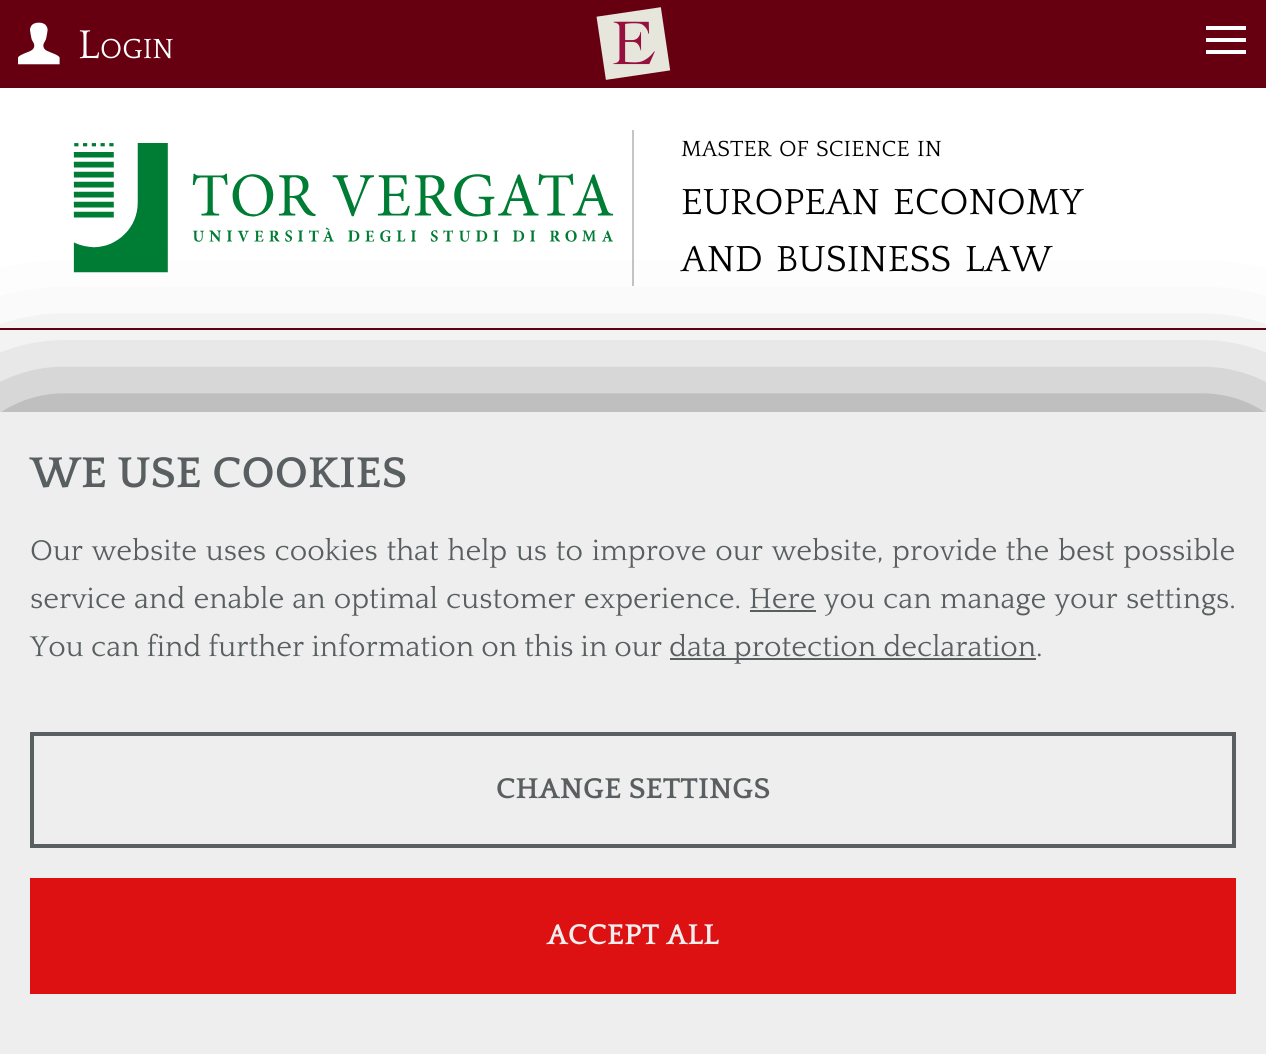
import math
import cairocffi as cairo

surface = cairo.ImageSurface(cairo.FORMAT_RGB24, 1266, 1054)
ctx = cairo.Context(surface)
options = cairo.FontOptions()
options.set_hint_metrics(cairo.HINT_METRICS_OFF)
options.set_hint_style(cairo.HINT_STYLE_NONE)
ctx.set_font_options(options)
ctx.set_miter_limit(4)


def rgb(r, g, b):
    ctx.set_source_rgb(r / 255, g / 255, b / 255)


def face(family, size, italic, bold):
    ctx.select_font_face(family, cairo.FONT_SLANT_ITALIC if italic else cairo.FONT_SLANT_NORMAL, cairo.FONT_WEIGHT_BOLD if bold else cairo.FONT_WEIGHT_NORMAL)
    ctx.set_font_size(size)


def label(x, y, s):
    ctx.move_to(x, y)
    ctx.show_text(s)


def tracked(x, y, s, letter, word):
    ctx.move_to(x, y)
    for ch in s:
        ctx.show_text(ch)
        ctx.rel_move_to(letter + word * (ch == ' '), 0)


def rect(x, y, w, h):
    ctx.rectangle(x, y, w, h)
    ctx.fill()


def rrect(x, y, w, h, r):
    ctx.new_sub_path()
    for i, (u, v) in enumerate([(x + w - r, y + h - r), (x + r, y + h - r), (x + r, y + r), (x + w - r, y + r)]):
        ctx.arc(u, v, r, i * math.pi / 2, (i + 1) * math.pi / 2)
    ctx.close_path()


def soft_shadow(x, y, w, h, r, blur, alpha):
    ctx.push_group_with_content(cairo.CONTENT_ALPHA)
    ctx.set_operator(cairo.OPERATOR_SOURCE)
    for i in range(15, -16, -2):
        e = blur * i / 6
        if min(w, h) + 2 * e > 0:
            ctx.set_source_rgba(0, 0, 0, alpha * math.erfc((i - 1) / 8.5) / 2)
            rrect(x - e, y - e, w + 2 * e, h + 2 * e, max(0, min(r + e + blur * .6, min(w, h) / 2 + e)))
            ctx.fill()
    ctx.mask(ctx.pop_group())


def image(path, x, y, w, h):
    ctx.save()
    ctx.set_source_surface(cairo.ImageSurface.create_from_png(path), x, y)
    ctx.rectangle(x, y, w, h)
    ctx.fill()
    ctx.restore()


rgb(255, 255, 255)
ctx.paint()
rgb(102, 0, 17)
rect(0, 328, 1266, 2)
rect(0, 0, 1266, 88)
image('image0.png', 18, 22, 42, 43)
face('Quattrocento', 42, 0, 0)
rgb(255, 255, 255)
label(78, 58, 'L')
face('Quattrocento', 29, 0, 0)
label(100, 58, 'OGIN')
image('image1.png', 596, 7, 75, 73)
rect(1206, 26, 40, 4)
rect(1206, 38, 40, 4)
rect(1206, 50, 40, 4)
rgb(197, 197, 197)
rect(632, 130, 2, 156)
image('image2.png', 73, 143, 541, 130)
face('Quattrocento', 23, 0, 0)
rgb(0, 0, 0)
label(681, 156, 'MASTER')
label(779, 156, 'OF')
label(816, 156, 'SCIENCE')
label(917, 156, 'IN')
face('Quattrocento', 38, 0, 0)
label(681, 214, 'EUROPEAN')
label(893, 214, 'ECONOMY')
label(681, 271, 'AND')
label(776, 271, 'BUSINESS')
label(965, 271, 'LAW')
rgb(0, 0, 0)
soft_shadow(16, 460, 1234, 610, 0, 80, 1)
rgb(238, 238, 238)
rect(0, 412, 1266, 642)
face('Quattrocento', 45, 0, 1)
rgb(89, 95, 96)
label(30, 487, 'WE USE COOKIES')
face('Quattrocento', 30, 0, 0)
tracked(30, 560, 'Our website uses cookies that help us to improve our website, provide the best possible', 0, 1.5)
tracked(30, 608, 'service and enable an optimal customer experience.', 0, 1)
label(749, 608, 'Here')
rect(750, 610, 66, 2)
tracked(824, 608, 'you can manage your settings.', 0, 1)
label(30, 656, 'You can find further information on this in our')
rect(670, 658, 366, 2)
label(669, 656, 'data protection declaration.')
ctx.rectangle(32, 734, 1202, 112)
ctx.set_line_width(4)
ctx.stroke()
face('Quattrocento', 30, 0, 1)
label(496, 798, 'CHANGE SETTINGS')
rgb(221, 17, 17)
rect(30, 878, 1206, 116)
rgb(238, 238, 238)
label(547, 944, 'ACCEPT ALL')
surface.write_to_png('render.png')
